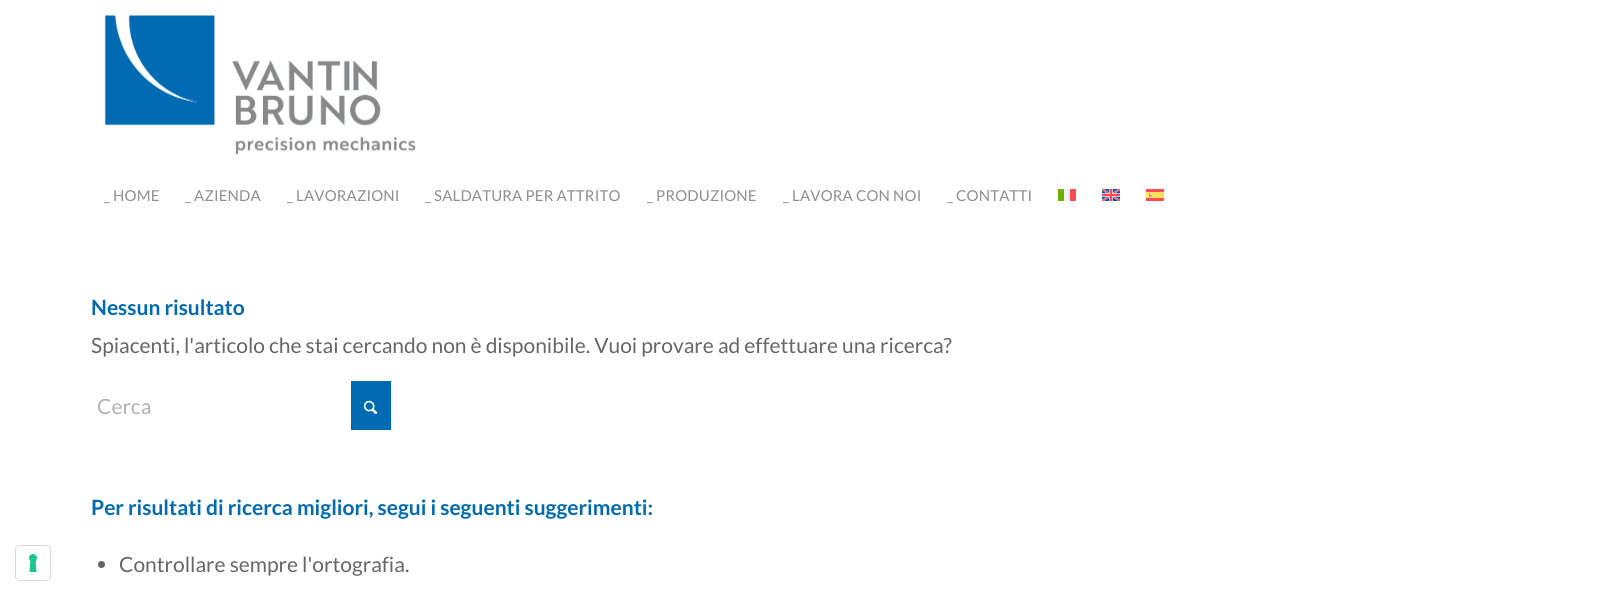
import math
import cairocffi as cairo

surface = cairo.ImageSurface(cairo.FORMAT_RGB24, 1620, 596)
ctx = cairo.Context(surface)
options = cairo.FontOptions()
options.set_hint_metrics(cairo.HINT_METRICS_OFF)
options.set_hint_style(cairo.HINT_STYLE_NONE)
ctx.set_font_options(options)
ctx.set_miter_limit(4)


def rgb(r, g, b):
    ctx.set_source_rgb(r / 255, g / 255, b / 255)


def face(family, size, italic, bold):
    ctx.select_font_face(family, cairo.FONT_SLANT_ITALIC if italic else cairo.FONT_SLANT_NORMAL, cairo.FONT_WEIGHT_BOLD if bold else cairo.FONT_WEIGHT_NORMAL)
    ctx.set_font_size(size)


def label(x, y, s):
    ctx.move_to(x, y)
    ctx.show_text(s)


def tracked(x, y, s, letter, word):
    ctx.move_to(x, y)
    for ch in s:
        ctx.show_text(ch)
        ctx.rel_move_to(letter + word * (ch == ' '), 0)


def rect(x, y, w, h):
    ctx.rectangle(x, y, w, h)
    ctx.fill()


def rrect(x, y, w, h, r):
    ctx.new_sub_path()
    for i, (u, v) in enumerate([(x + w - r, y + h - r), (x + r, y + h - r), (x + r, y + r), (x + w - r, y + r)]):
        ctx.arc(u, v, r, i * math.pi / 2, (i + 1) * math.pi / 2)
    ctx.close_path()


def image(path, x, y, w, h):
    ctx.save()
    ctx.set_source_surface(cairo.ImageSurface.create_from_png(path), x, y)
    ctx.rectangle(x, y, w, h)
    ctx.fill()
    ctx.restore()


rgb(255, 255, 255)
ctx.paint()
rrect(15.5, 545.5, 35, 35, 4.5)
rgb(217, 217, 217)
ctx.set_line_width(1)
ctx.stroke()
rgb(255, 255, 255)
rrect(16, 546, 34, 34, 4)
ctx.fill()
image('image0.png', 29, 554, 8, 18)
image('image1.png', 104, 15, 312, 140)
face('Lato', 15, 0, 0)
rgb(143, 143, 143)
tracked(104, 201, '_ HOME', 0.15, 0)
tracked(185, 201, '_ AZIENDA', 0.15, 0)
tracked(287, 201, '_ LAVORAZIONI', 0.15, 0)
tracked(425, 201, '_ SALDATURA PER ATTRITO', 0.15, 0)
tracked(647, 201, '_ PRODUZIONE', 0.15, 0)
tracked(783, 201, '_ LAVORA CON NOI', 0.15, 0)
tracked(947, 201, '_ CONTATTI', 0.15, 0)
rgb(240, 240, 240)
rect(1064, 189, 6, 12)
rgb(255, 75, 85)
rect(1070, 189, 6, 12)
rgb(115, 175, 0)
rect(1058, 189, 6, 12)
image('image2.png', 1102, 189, 18, 12)
image('image3.png', 1146, 189, 18, 12)
face('Lato', 21, 0, 1)
rgb(0, 107, 179)
label(91, 315, 'Nessun risultato')
face('Lato', 21, 0, 0)
rgb(102, 102, 102)
label(91, 353, 'Spiacenti, l\'articolo che stai cercando non è disponibile. Vuoi provare ad effettuare una ricerca?')
rgb(179, 179, 179)
label(97, 414, 'Cerca')
rgb(0, 107, 179)
rect(351, 381, 40, 49)
image('image4.png', 363, 400, 15, 15)
face('Lato', 21, 0, 1)
label(91, 515, 'Per risultati di ricerca migliori, segui i seguenti suggerimenti:')
rgb(102, 102, 102)
ctx.new_path()
ctx.arc(101.5, 564.5, 3.5, 0, 2 * math.pi)
ctx.fill()
face('Lato', 21, 0, 0)
label(119, 572, 'Controllare sempre l\'ortografia.')
surface.write_to_png('render.png')
